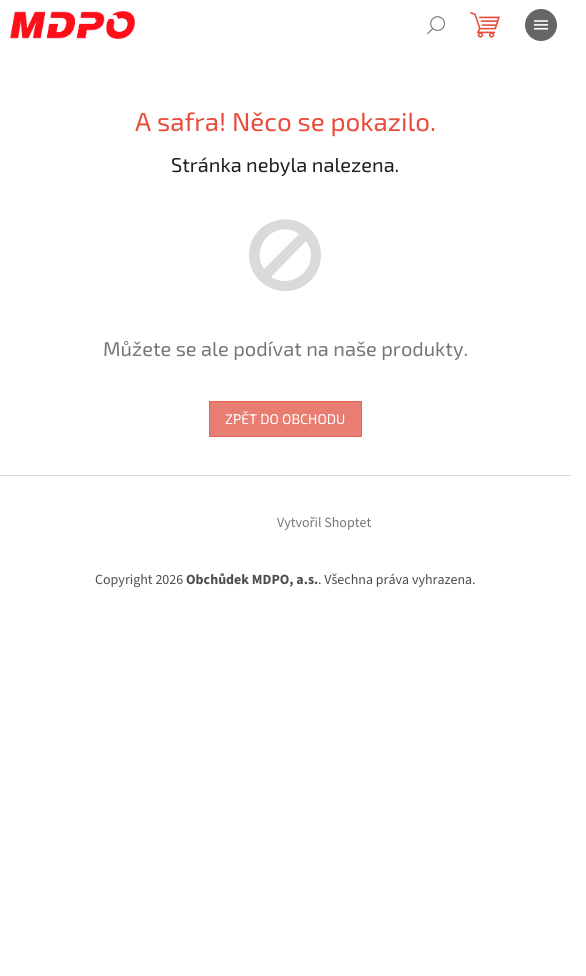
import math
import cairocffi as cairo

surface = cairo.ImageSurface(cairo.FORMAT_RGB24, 586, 976)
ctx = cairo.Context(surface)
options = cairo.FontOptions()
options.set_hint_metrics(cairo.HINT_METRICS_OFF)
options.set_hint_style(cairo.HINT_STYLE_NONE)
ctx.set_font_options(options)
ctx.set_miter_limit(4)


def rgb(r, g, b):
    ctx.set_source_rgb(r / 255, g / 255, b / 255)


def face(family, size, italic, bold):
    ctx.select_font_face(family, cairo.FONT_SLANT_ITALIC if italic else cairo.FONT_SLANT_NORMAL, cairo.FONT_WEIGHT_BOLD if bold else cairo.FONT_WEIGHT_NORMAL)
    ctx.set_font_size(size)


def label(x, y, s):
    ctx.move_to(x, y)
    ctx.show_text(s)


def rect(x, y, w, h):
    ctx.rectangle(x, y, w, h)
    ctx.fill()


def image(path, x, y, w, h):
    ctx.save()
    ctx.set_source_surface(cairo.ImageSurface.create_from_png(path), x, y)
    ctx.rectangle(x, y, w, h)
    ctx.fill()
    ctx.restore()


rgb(255, 255, 255)
ctx.paint()
image('image0.png', 427, 16, 18, 19)
rgb(102, 102, 102)
ctx.arc(541, 25, 16, 0, 2 * math.pi)
ctx.fill()
image('image1.png', 534, 20, 14, 10)
image('image2.png', 10, 11, 125, 28)
image('image3.png', 470, 12, 30, 26)
face('Exo 2', 26, 0, 0)
rgb(231, 76, 60)
label(135, 131, 'A safra! Něco se pokazilo.')
face('Exo 2', 20, 0, 0)
rgb(31, 31, 31)
label(171, 172, 'Stránka nebyla nalezena.')
rgb(218, 218, 218)
ctx.new_path()
ctx.move_to(311, 255)
ctx.curve_to(311, 250, 309, 245, 306, 241)
ctx.line_to(271, 277)
ctx.curve_to(288, 288, 311, 275, 311, 255)
ctx.close_path()
ctx.move_to(264, 269)
ctx.line_to(299, 234)
ctx.curve_to(276, 218, 249, 246, 264, 269)
ctx.close_path()
ctx.move_to(321, 255)
ctx.curve_to(321, 262, 319, 269, 315, 275)
ctx.curve_to(295, 305, 249, 290, 249, 255)
ctx.curve_to(249, 220, 295, 206, 315, 235)
ctx.curve_to(319, 241, 321, 248, 321, 255)
ctx.close_path()
ctx.fill()
rgb(118, 118, 118)
label(103, 356, 'Můžete se ale podívat na naše produkty.')
rgb(232, 126, 114)
ctx.rectangle(209.5, 401.5, 152, 35)
ctx.fill_preserve()
rgb(232, 100, 86)
ctx.set_line_width(1)
ctx.stroke()
face('Exo 2', 14, 0, 0)
rgb(255, 255, 255)
label(225, 424, 'ZPĚT DO OBCHODU')
rgb(218, 218, 218)
rect(0, 475, 571, 1)
face('Source Sans 3', 14, 0, 0)
rgb(118, 118, 118)
label(277, 527, 'Vytvořil Shoptet')
rgb(77, 77, 77)
label(95, 584, 'Copyright 2026')
face('Source Sans 3', 14, 0, 1)
label(186, 584, 'Obchůdek MDPO, a.s.')
face('Source Sans 3', 14, 0, 0)
label(318, 584, '. Všechna práva vyhrazena.')
surface.write_to_png('render.png')
